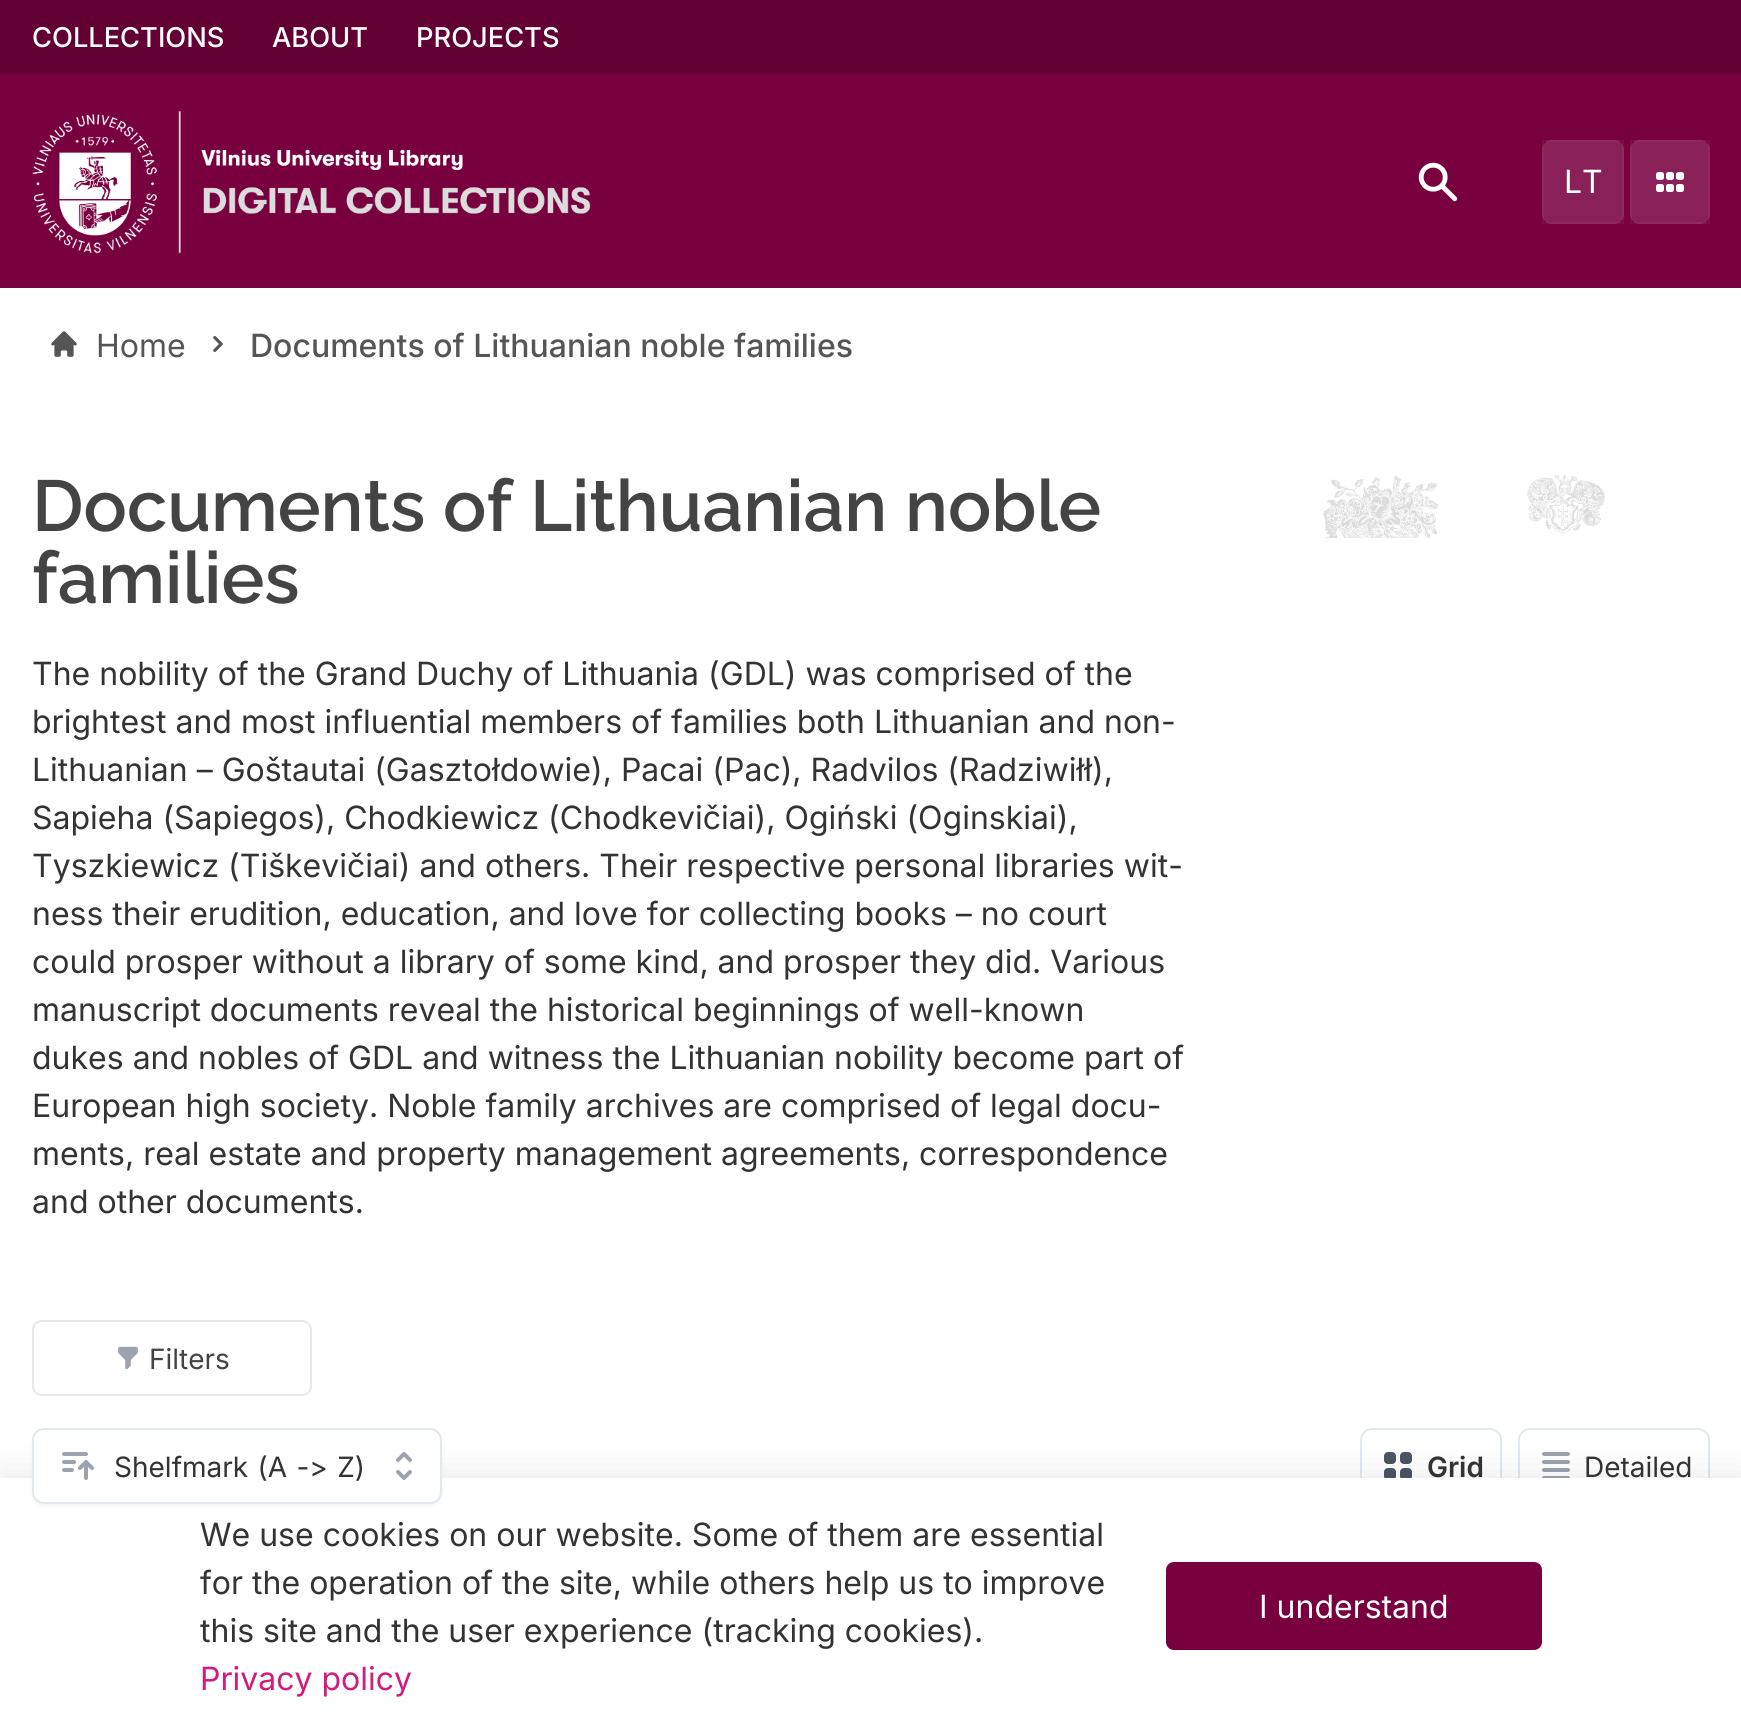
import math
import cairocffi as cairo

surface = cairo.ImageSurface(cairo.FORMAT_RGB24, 1741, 1734)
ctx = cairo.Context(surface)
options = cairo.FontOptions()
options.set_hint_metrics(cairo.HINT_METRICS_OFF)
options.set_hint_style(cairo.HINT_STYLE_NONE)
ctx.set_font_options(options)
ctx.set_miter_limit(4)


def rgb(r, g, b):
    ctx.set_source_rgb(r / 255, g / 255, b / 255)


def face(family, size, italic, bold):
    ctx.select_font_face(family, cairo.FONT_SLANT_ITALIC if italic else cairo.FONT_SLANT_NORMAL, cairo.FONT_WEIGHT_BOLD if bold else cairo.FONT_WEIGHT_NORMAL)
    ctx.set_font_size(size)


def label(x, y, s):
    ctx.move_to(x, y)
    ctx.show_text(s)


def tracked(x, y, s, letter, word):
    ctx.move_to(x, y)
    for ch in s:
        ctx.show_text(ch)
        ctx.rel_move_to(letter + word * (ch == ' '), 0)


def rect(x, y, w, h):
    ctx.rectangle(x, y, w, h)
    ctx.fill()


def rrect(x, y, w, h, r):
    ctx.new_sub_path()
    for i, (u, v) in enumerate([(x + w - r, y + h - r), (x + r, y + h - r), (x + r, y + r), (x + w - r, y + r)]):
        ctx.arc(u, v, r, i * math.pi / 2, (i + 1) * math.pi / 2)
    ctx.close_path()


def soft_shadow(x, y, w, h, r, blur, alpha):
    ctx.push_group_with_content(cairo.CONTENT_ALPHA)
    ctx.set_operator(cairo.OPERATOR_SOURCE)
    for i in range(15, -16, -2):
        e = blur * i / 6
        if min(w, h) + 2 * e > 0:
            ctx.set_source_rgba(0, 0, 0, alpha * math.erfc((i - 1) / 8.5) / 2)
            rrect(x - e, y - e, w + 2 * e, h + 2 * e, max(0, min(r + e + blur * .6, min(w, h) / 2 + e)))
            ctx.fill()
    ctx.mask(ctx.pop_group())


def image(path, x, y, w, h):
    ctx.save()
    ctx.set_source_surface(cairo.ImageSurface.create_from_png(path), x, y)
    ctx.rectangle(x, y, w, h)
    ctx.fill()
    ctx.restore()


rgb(255, 255, 255)
ctx.paint()
rgb(98, 0, 51)
rect(0, 0, 1741, 74)
face('Inter Medium', 27.25, 0, 0)
rgb(255, 255, 255)
label(32, 47, 'COLLECTIONS')
label(272, 47, 'ABOUT')
label(416, 47, 'PROJECTS')
rgb(120, 0, 63)
rect(0, 74, 1741, 214)
image('image0.png', 32, 110, 559, 144)
image('image1.png', 1418, 162, 40, 40)
ctx.set_source_rgba(1, 1, 1, 0.13)
rrect(1542, 140, 82, 84, 10)
ctx.fill()
ctx.rectangle(1543, 141, 80, 82)
ctx.set_source_rgba(1, 1, 1, 0.05)
ctx.stroke()
face('Inter', 32, 0, 0)
rgb(255, 255, 255)
label(1564, 193, 'LT')
ctx.set_source_rgba(1, 1, 1, 0.13)
rrect(1630, 140, 80, 84, 10)
ctx.fill()
ctx.rectangle(1631, 141, 78, 82)
ctx.set_source_rgba(1, 1, 1, 0.05)
ctx.stroke()
image('image2.png', 1656, 172, 28, 20)
image('image3.png', 51, 331, 26, 26)
rgb(85, 85, 85)
label(96, 357, 'Home')
image('image4.png', 213, 336, 10, 16)
face('Inter Medium', 32, 0, 0)
label(250, 357, 'Documents of Lithuanian noble families')
face('Raleway SemiBold', 72, 0, 0)
rgb(68, 68, 68)
label(32, 531, 'Documents of Lithuanian noble')
label(32, 603, 'families')
face('Inter', 32, 0, 0)
rgb(51, 51, 51)
label(32, 685, 'The nobility of the Grand Duchy of Lithuania (GDL) was comprised of the')
label(32, 733, 'brightest and most influential members of families both Lithuanian and non-')
label(32, 781, 'Lithuanian – Goštautai (Gasztołdowie), Pacai (Pac), Radvilos (Radziwiłł),')
label(32, 829, 'Sapieha (Sapiegos), Chodkiewicz (Chodkevičiai), Ogiński (Oginskiai),')
label(32, 877, 'Tyszkiewicz (Tiškevičiai) and others. Their respective personal libraries wit-')
label(32, 925, 'ness their erudition, education, and love for collecting books – no court')
label(32, 973, 'could prosper without a library of some kind, and prosper they did. Various')
label(32, 1021, 'manuscript documents reveal the historical beginnings of well-known')
label(32, 1069, 'dukes and nobles of GDL and witness the Lithuanian nobility become part of')
label(32, 1117, 'European high society. Noble family archives are comprised of legal docu-')
label(32, 1165, 'ments, real estate and property management agreements, correspondence')
label(32, 1213, 'and other documents.')
image('image5.png', 1323, 475, 282, 63)
rrect(33, 1321, 278, 74, 9)
rgb(232, 232, 232)
ctx.stroke()
image('image6.png', 118, 1346, 20, 24)
face('Inter', 28, 0, 0)
rgb(68, 68, 68)
label(149, 1369, 'Filters')
rrect(1361, 1429, 140, 74, 11)
rgb(226, 232, 240)
ctx.stroke()
rrect(1519, 1429, 190, 74, 11)
ctx.stroke()
image('image9.png', 1384, 1452, 28, 26)
image('image10.png', 1542, 1452, 28, 26)
rgb(0, 0, 0)
soft_shadow(0, 1478, 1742, 256, 0, 18, 0.1)
rgb(255, 255, 255)
rect(0, 1478, 1741, 256)
rgb(0, 0, 0)
soft_shadow(32, 1430, 410, 76, 12, 2, 0.05)
rgb(255, 255, 255)
rrect(33, 1429, 408, 74, 11)
ctx.fill_preserve()
rgb(226, 232, 240)
ctx.stroke()
image('image7.png', 62, 1452, 32, 28)
rgb(51, 51, 51)
tracked(114, 1477, 'Shelfmark (A -> Z)', 0, 1.5)
image('image8.png', 396, 1452, 16, 28)
face('Inter SemiBold', 28, 0, 0)
label(1427, 1477, 'Grid')
face('Inter', 28, 0, 0)
label(1584, 1477, 'Detailed')
face('Inter', 32, 0, 0)
label(200, 1546, 'We use cookies on our website. Some of them are essential')
label(200, 1594, 'for the operation of the site, while others help us to improve')
label(200, 1642, 'this site and the user experience (tracking cookies).')
rgb(210, 28, 123)
label(200, 1690, 'Privacy policy')
rgb(120, 0, 63)
rrect(1166, 1562, 376, 88, 8)
ctx.fill()
rgb(255, 255, 255)
label(1259, 1618, 'I understand')
surface.write_to_png('render.png')
